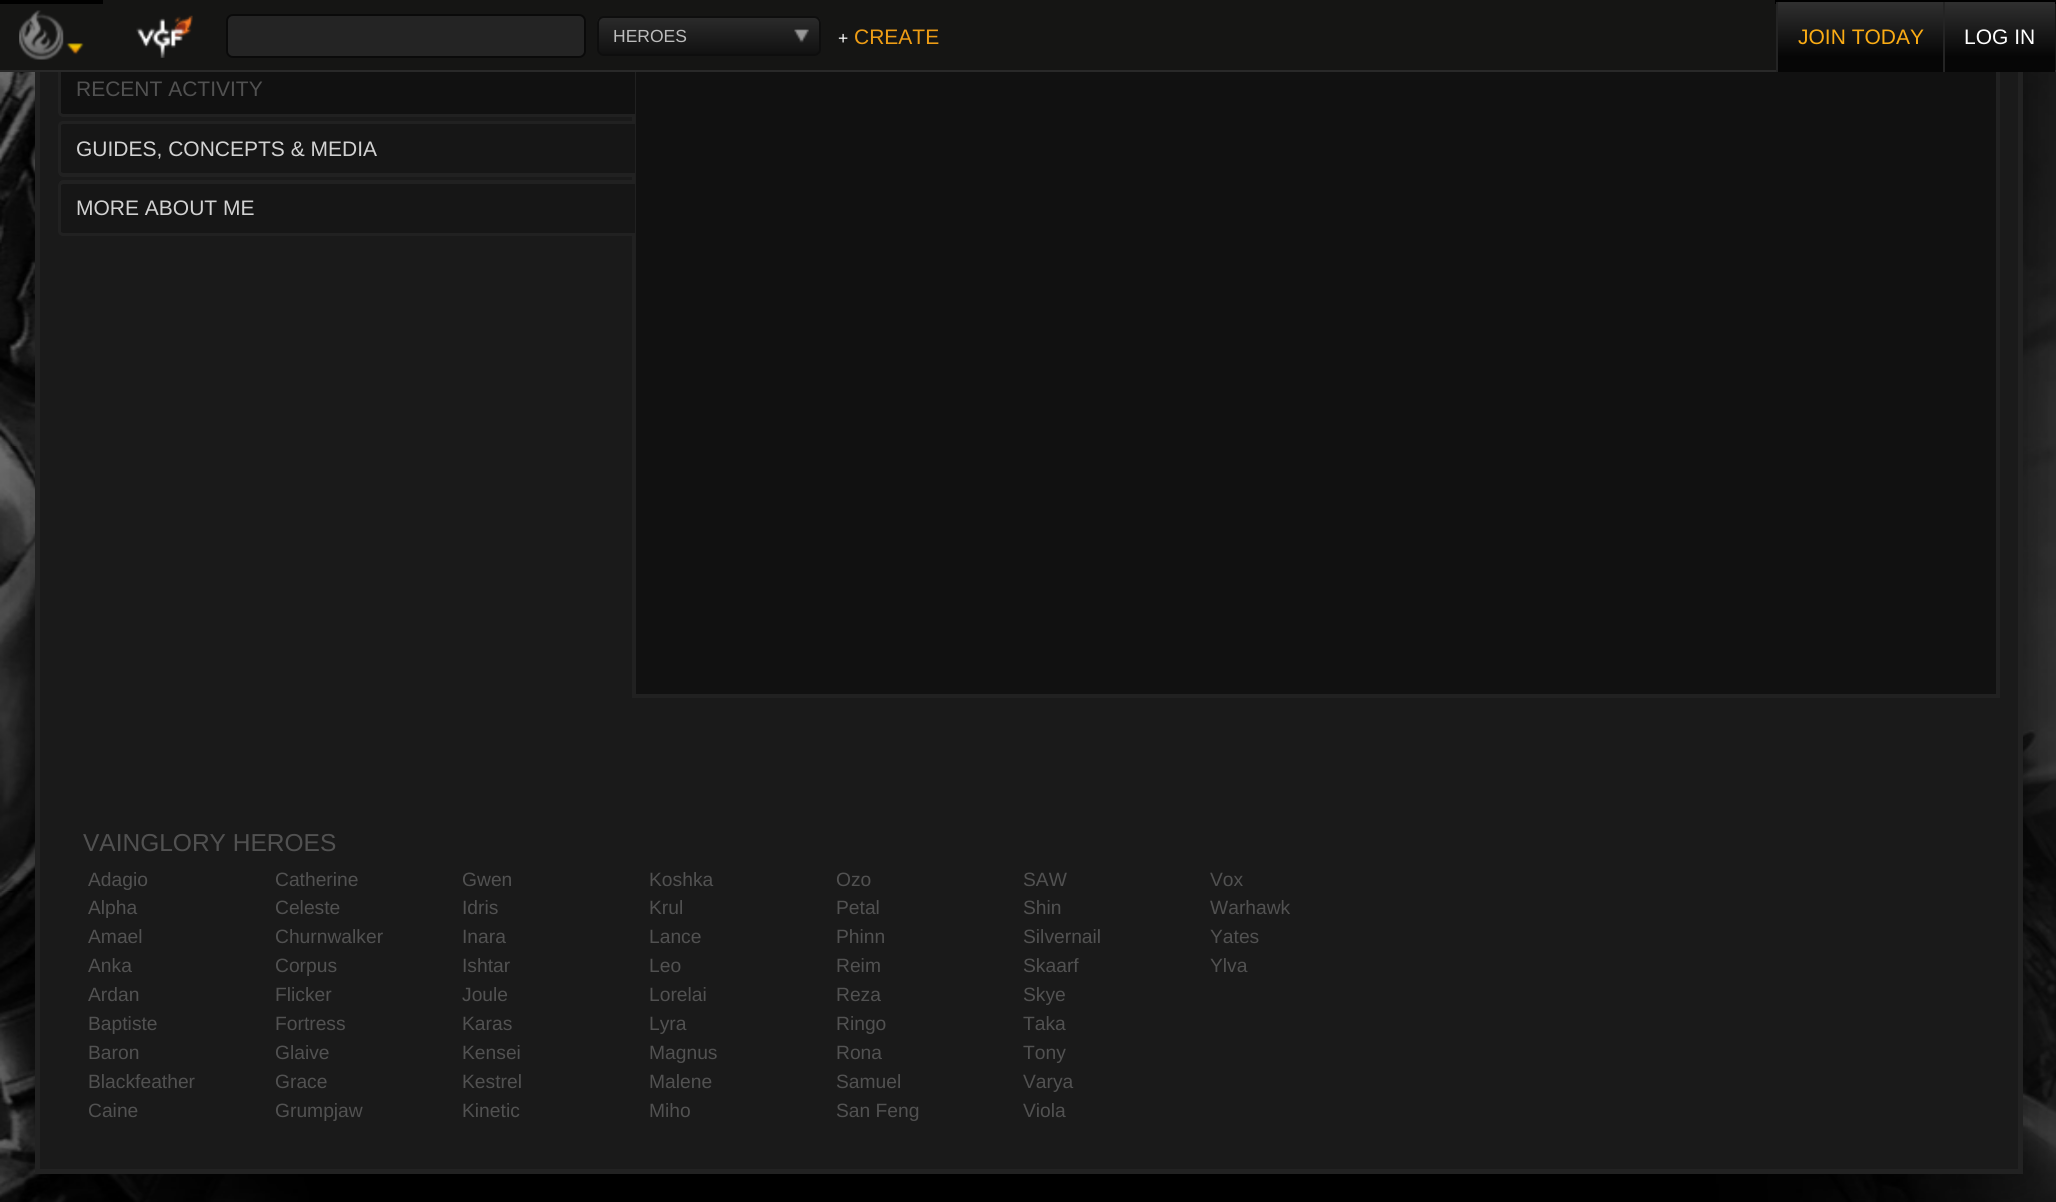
import math
import cairocffi as cairo

surface = cairo.ImageSurface(cairo.FORMAT_RGB24, 2056, 1202)
ctx = cairo.Context(surface)
options = cairo.FontOptions()
options.set_hint_metrics(cairo.HINT_METRICS_OFF)
options.set_hint_style(cairo.HINT_STYLE_NONE)
ctx.set_font_options(options)
ctx.set_miter_limit(4)


def rgb(r, g, b):
    ctx.set_source_rgb(r / 255, g / 255, b / 255)


def face(family, size, italic, bold):
    ctx.select_font_face(family, cairo.FONT_SLANT_ITALIC if italic else cairo.FONT_SLANT_NORMAL, cairo.FONT_WEIGHT_BOLD if bold else cairo.FONT_WEIGHT_NORMAL)
    ctx.set_font_size(size)


def label(x, y, s):
    ctx.move_to(x, y)
    ctx.show_text(s)


def rect(x, y, w, h):
    ctx.rectangle(x, y, w, h)
    ctx.fill()


def rrect(x, y, w, h, r):
    ctx.new_sub_path()
    for i, (u, v) in enumerate([(x + w - r, y + h - r), (x + r, y + h - r), (x + r, y + r), (x + w - r, y + r)]):
        ctx.arc(u, v, r, i * math.pi / 2, (i + 1) * math.pi / 2)
    ctx.close_path()


def soft_shadow(x, y, w, h, r, blur, alpha):
    ctx.push_group_with_content(cairo.CONTENT_ALPHA)
    ctx.set_operator(cairo.OPERATOR_SOURCE)
    for i in range(15, -16, -2):
        e = blur * i / 6
        if min(w, h) + 2 * e > 0:
            ctx.set_source_rgba(0, 0, 0, alpha * math.erfc((i - 1) / 8.5) / 2)
            rrect(x - e, y - e, w + 2 * e, h + 2 * e, max(0, min(r + e + blur * .6, min(w, h) / 2 + e)))
            ctx.fill()
    ctx.mask(ctx.pop_group())


def image(path, x, y, w, h):
    ctx.save()
    ctx.set_source_surface(cairo.ImageSurface.create_from_png(path), x, y)
    ctx.rectangle(x, y, w, h)
    ctx.fill()
    ctx.restore()


rgb(255, 255, 255)
ctx.paint()
image('image0.png', 0, 72, 2056, 1130)
rgb(0, 0, 0)
soft_shadow(35, -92, 1988, 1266, 0, 30.5, 0.35)
rgb(26, 26, 26)
rect(40, 72, 1978, 1097)
ctx.rectangle(37.5, -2.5, 1983, 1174)
rgb(34, 34, 34)
ctx.set_line_width(5)
ctx.stroke()
rgb(17, 17, 17)
rect(636, 72, 1360, 622)
ctx.rectangle(634, -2, 1364, 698)
rgb(33, 33, 33)
ctx.set_line_width(4)
ctx.stroke()
rgb(17, 17, 17)
ctx.new_path()
ctx.move_to(63, 61)
ctx.line_to(635, 61)
ctx.line_to(635, 117)
ctx.line_to(63, 117)
ctx.curve_to(60, 117, 58, 115, 58, 112)
ctx.line_to(58, 66)
ctx.curve_to(58, 63, 60, 61, 63, 61)
ctx.close_path()
ctx.fill()
rgb(33, 33, 33)
ctx.set_fill_rule(cairo.FILL_RULE_EVEN_ODD)
ctx.new_path()
ctx.move_to(63, 61)
ctx.line_to(635, 61)
ctx.line_to(635, 117)
ctx.line_to(63, 117)
ctx.curve_to(60, 117, 58, 115, 58, 112)
ctx.line_to(58, 66)
ctx.curve_to(58, 64, 60, 61, 63, 61)
ctx.close_path()
ctx.move_to(63, 65)
ctx.line_to(635, 65)
ctx.line_to(635, 114)
ctx.line_to(63, 114)
ctx.line_to(61, 113)
ctx.line_to(61, 66)
ctx.close_path()
ctx.fill()
rgb(21, 21, 20)
rect(0, 0, 2056, 70)
rgb(41, 41, 41)
rect(0, 70, 2056, 2)
rgb(36, 36, 36)
rrect(227, 15, 358, 42, 6)
ctx.fill_preserve()
rgb(10, 10, 10)
ctx.set_line_width(2)
ctx.stroke()
ctx.save()
ctx.set_fill_rule(cairo.FILL_RULE_WINDING)
rrect(597, 16, 224, 40, 7)
ctx.clip()
gradient = cairo.LinearGradient(709, 17, 709, 54)
gradient.add_color_stop_rgba(0, 0.169, 0.169, 0.169, 1)
gradient.add_color_stop_rgba(1, 0.067, 0.067, 0.067, 1)
ctx.set_source(gradient)
rect(597, 18, 224, 36)
ctx.restore()
rrect(598, 17, 222, 38, 6)
rgb(14, 14, 14)
ctx.stroke()
face('Liberation Sans', 17.5, 0, 0)
rgb(188, 188, 188)
label(613, 42, 'HEROES')
image('image1.png', 794, 29, 15, 14)
rgb(0, 0, 0)
rect(0, 0, 103, 4)
image('image2.png', 19, 10, 45, 50)
image('image3.png', 66, 43, 18, 12)
image('image4.png', 136, 15, 57, 43)
rgb(255, 255, 255)
label(838, 44, '+')
face('Liberation Sans', 21, 0, 0)
rgb(238, 157, 21)
label(854, 44, 'CREATE')
rgb(0, 0, 0)
rect(1775, 0, 281, 4)
gradient = cairo.LinearGradient(1860, 1.7, 1860, 72)
gradient.add_color_stop_rgba(0, 0.188, 0.188, 0.188, 1)
gradient.add_color_stop_rgba(0.78, 0.024, 0.024, 0.024, 1)
ctx.set_source(gradient)
rect(1778, 2, 165, 70)
rgb(36, 36, 36)
rect(1776, 2, 2, 70)
rgb(251, 172, 20)
label(1798, 44, 'JOIN TODAY')
gradient = cairo.LinearGradient(1999, 1.7, 1999, 72)
gradient.add_color_stop_rgba(0, 0.188, 0.188, 0.188, 1)
gradient.add_color_stop_rgba(0.78, 0.024, 0.024, 0.024, 1)
ctx.set_source(gradient)
rect(1945, 2, 110, 70)
rgb(36, 36, 36)
rect(1943, 2, 2, 70)
rgb(255, 255, 255)
label(1964, 44, 'LOG IN')
rgb(81, 81, 81)
label(76, 96, 'RECENT ACTIVITY')
rgb(22, 22, 22)
ctx.new_path()
ctx.move_to(63, 121)
ctx.line_to(635, 121)
ctx.line_to(635, 177)
ctx.line_to(63, 177)
ctx.curve_to(60, 177, 58, 175, 58, 172)
ctx.line_to(58, 126)
ctx.curve_to(58, 123, 60, 121, 63, 121)
ctx.close_path()
ctx.fill()
rgb(33, 33, 33)
ctx.new_path()
ctx.move_to(63, 121)
ctx.line_to(635, 121)
ctx.line_to(635, 177)
ctx.line_to(63, 177)
ctx.curve_to(60, 177, 58, 174, 58, 172)
ctx.line_to(58, 126)
ctx.curve_to(58, 123, 60, 121, 63, 121)
ctx.close_path()
ctx.move_to(63, 124)
ctx.line_to(635, 124)
ctx.line_to(635, 173)
ctx.line_to(63, 173)
ctx.line_to(61, 172)
ctx.line_to(61, 125)
ctx.close_path()
ctx.fill()
rgb(210, 210, 210)
label(76, 156, 'GUIDES, CONCEPTS & MEDIA')
rgb(22, 22, 22)
ctx.new_path()
ctx.move_to(63, 180)
ctx.line_to(635, 180)
ctx.line_to(635, 236)
ctx.line_to(63, 236)
ctx.curve_to(60, 236, 58, 234, 58, 231)
ctx.line_to(58, 185)
ctx.curve_to(58, 182, 60, 180, 63, 180)
ctx.close_path()
ctx.fill()
rgb(33, 33, 33)
ctx.new_path()
ctx.move_to(63, 180)
ctx.line_to(635, 180)
ctx.line_to(635, 236)
ctx.line_to(63, 236)
ctx.curve_to(60, 236, 58, 234, 58, 231)
ctx.line_to(58, 186)
ctx.curve_to(58, 183, 60, 180, 63, 180)
ctx.close_path()
ctx.move_to(63, 184)
ctx.line_to(635, 184)
ctx.line_to(635, 233)
ctx.line_to(63, 233)
ctx.line_to(61, 232)
ctx.line_to(61, 185)
ctx.close_path()
ctx.fill()
rgb(210, 210, 210)
label(76, 215, 'MORE ABOUT ME')
face('Liberation Sans', 24.5, 0, 0)
rgb(81, 81, 81)
label(83, 851, 'VAINGLORY HEROES')
face('Liberation Sans', 19.25, 0, 0)
label(88, 886, 'Adagio')
label(275, 886, 'Catherine')
label(462, 886, 'Gwen')
label(649, 886, 'Koshka')
label(836, 886, 'Ozo')
label(1023, 886, 'SAW')
label(1210, 886, 'Vox')
label(88, 914, 'Alpha')
label(275, 914, 'Celeste')
label(462, 914, 'Idris')
label(649, 914, 'Krul')
label(836, 914, 'Petal')
label(1023, 914, 'Shin')
label(1210, 914, 'Warhawk')
label(88, 943, 'Amael')
label(275, 943, 'Churnwalker')
label(462, 943, 'Inara')
label(649, 943, 'Lance')
label(836, 943, 'Phinn')
label(1023, 943, 'Silvernail')
label(1210, 943, 'Yates')
label(88, 972, 'Anka')
label(275, 972, 'Corpus')
label(462, 972, 'Ishtar')
label(649, 972, 'Leo')
label(836, 972, 'Reim')
label(1023, 972, 'Skaarf')
label(1210, 972, 'Ylva')
label(88, 1001, 'Ardan')
label(275, 1001, 'Flicker')
label(462, 1001, 'Joule')
label(649, 1001, 'Lorelai')
label(836, 1001, 'Reza')
label(1023, 1001, 'Skye')
label(88, 1030, 'Baptiste')
label(275, 1030, 'Fortress')
label(462, 1030, 'Karas')
label(649, 1030, 'Lyra')
label(836, 1030, 'Ringo')
label(1023, 1030, 'Taka')
label(88, 1059, 'Baron')
label(275, 1059, 'Glaive')
label(462, 1059, 'Kensei')
label(649, 1059, 'Magnus')
label(836, 1059, 'Rona')
label(1023, 1059, 'Tony')
label(88, 1088, 'Blackfeather')
label(275, 1088, 'Grace')
label(462, 1088, 'Kestrel')
label(649, 1088, 'Malene')
label(836, 1088, 'Samuel')
label(1023, 1088, 'Varya')
label(88, 1117, 'Caine')
label(275, 1117, 'Grumpjaw')
label(462, 1117, 'Kinetic')
label(649, 1117, 'Miho')
label(836, 1117, 'San Feng')
label(1023, 1117, 'Viola')
surface.write_to_png('render.png')
